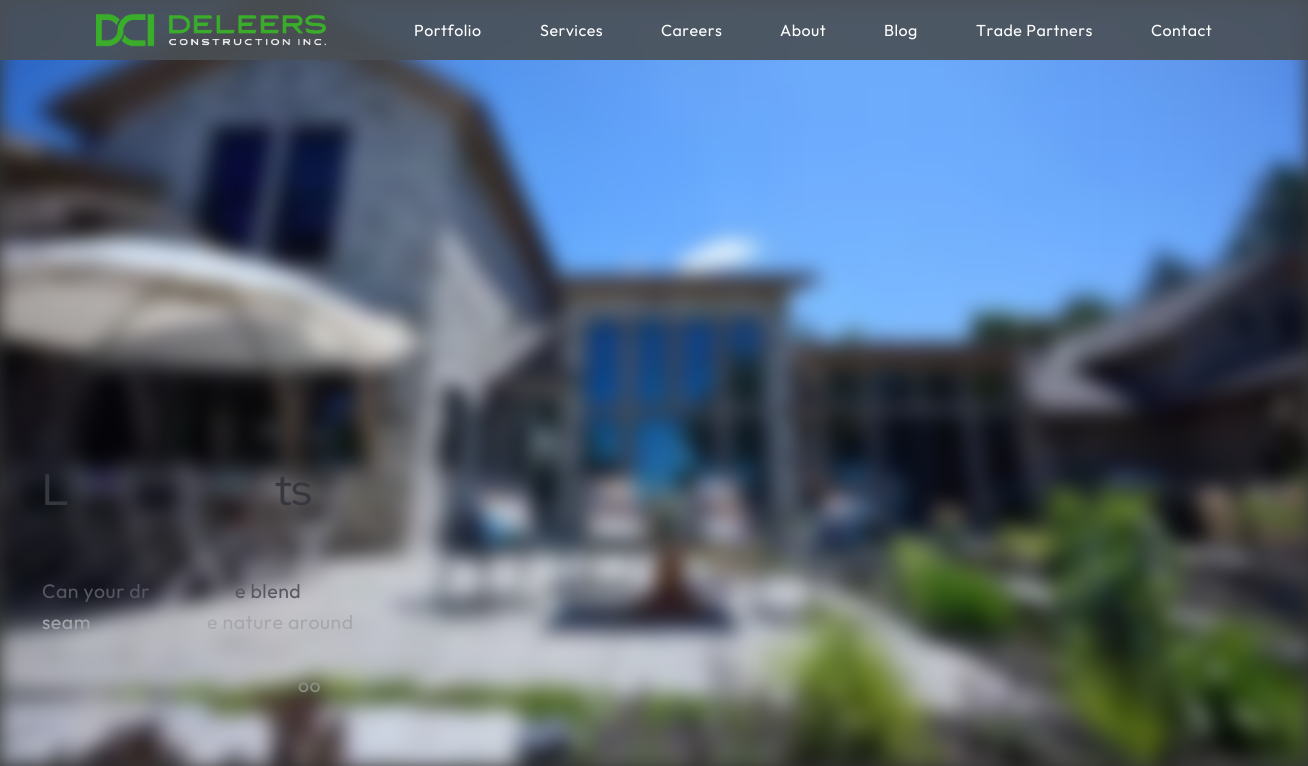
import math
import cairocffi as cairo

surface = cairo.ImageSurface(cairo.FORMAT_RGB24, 1308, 766)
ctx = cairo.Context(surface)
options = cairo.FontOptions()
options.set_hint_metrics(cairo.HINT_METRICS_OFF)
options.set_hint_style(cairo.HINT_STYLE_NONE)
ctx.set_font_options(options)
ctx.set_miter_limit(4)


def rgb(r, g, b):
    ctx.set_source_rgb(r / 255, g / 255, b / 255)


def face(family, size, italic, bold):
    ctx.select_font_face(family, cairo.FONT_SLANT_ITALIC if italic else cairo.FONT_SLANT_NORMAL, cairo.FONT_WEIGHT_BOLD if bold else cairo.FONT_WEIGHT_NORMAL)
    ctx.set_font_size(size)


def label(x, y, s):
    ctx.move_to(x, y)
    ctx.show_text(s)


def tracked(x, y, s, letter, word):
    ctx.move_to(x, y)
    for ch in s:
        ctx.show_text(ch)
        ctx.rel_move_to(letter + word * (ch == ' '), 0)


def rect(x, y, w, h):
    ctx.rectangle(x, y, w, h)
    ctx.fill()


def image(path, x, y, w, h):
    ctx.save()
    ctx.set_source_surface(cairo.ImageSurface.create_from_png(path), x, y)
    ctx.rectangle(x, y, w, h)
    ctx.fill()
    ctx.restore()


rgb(51, 51, 51)
ctx.paint()
image('image1.png', 0, 0, 1308, 766)
ctx.set_source_rgba(0.29, 0.31, 0.333, 0.9)
rect(0, 0, 1308, 60)
image('image0.png', 96, 13, 230, 34)
face('Outfit', 16, 0, 0)
rgb(255, 255, 255)
tracked(414, 36, 'Portfolio', 0.5, 0)
tracked(540, 36, 'Services', 0.5, 0)
tracked(661, 36, 'Careers', 0.5, 0)
tracked(780, 36, 'About', 0.5, 0)
tracked(884, 36, 'Blog', 0.5, 0)
tracked(976, 36, 'Trade Partners', 0.5, 0)
tracked(1151, 36, 'Contact', 0.5, 0)
face('Red Hat Display Medium', 44, 0, 0)
rgb(55, 55, 63)
label(42, 505, 'L')
label(275, 505, 'ts')
face('Outfit', 19.5, 0, 0)
rgb(87, 87, 97)
tracked(42, 598, 'Can your dr', 0.5, 0)
tracked(235, 598, 'e blend', 0.5, 0)
rgb(165, 167, 173)
tracked(42, 629, 'seam', 0.5, 0)
tracked(207, 629, 'e nature around', 0.5, 0)
rgb(139, 144, 132)
tracked(298, 692, 'oo', 0.5, 0)
surface.write_to_png('render.png')
